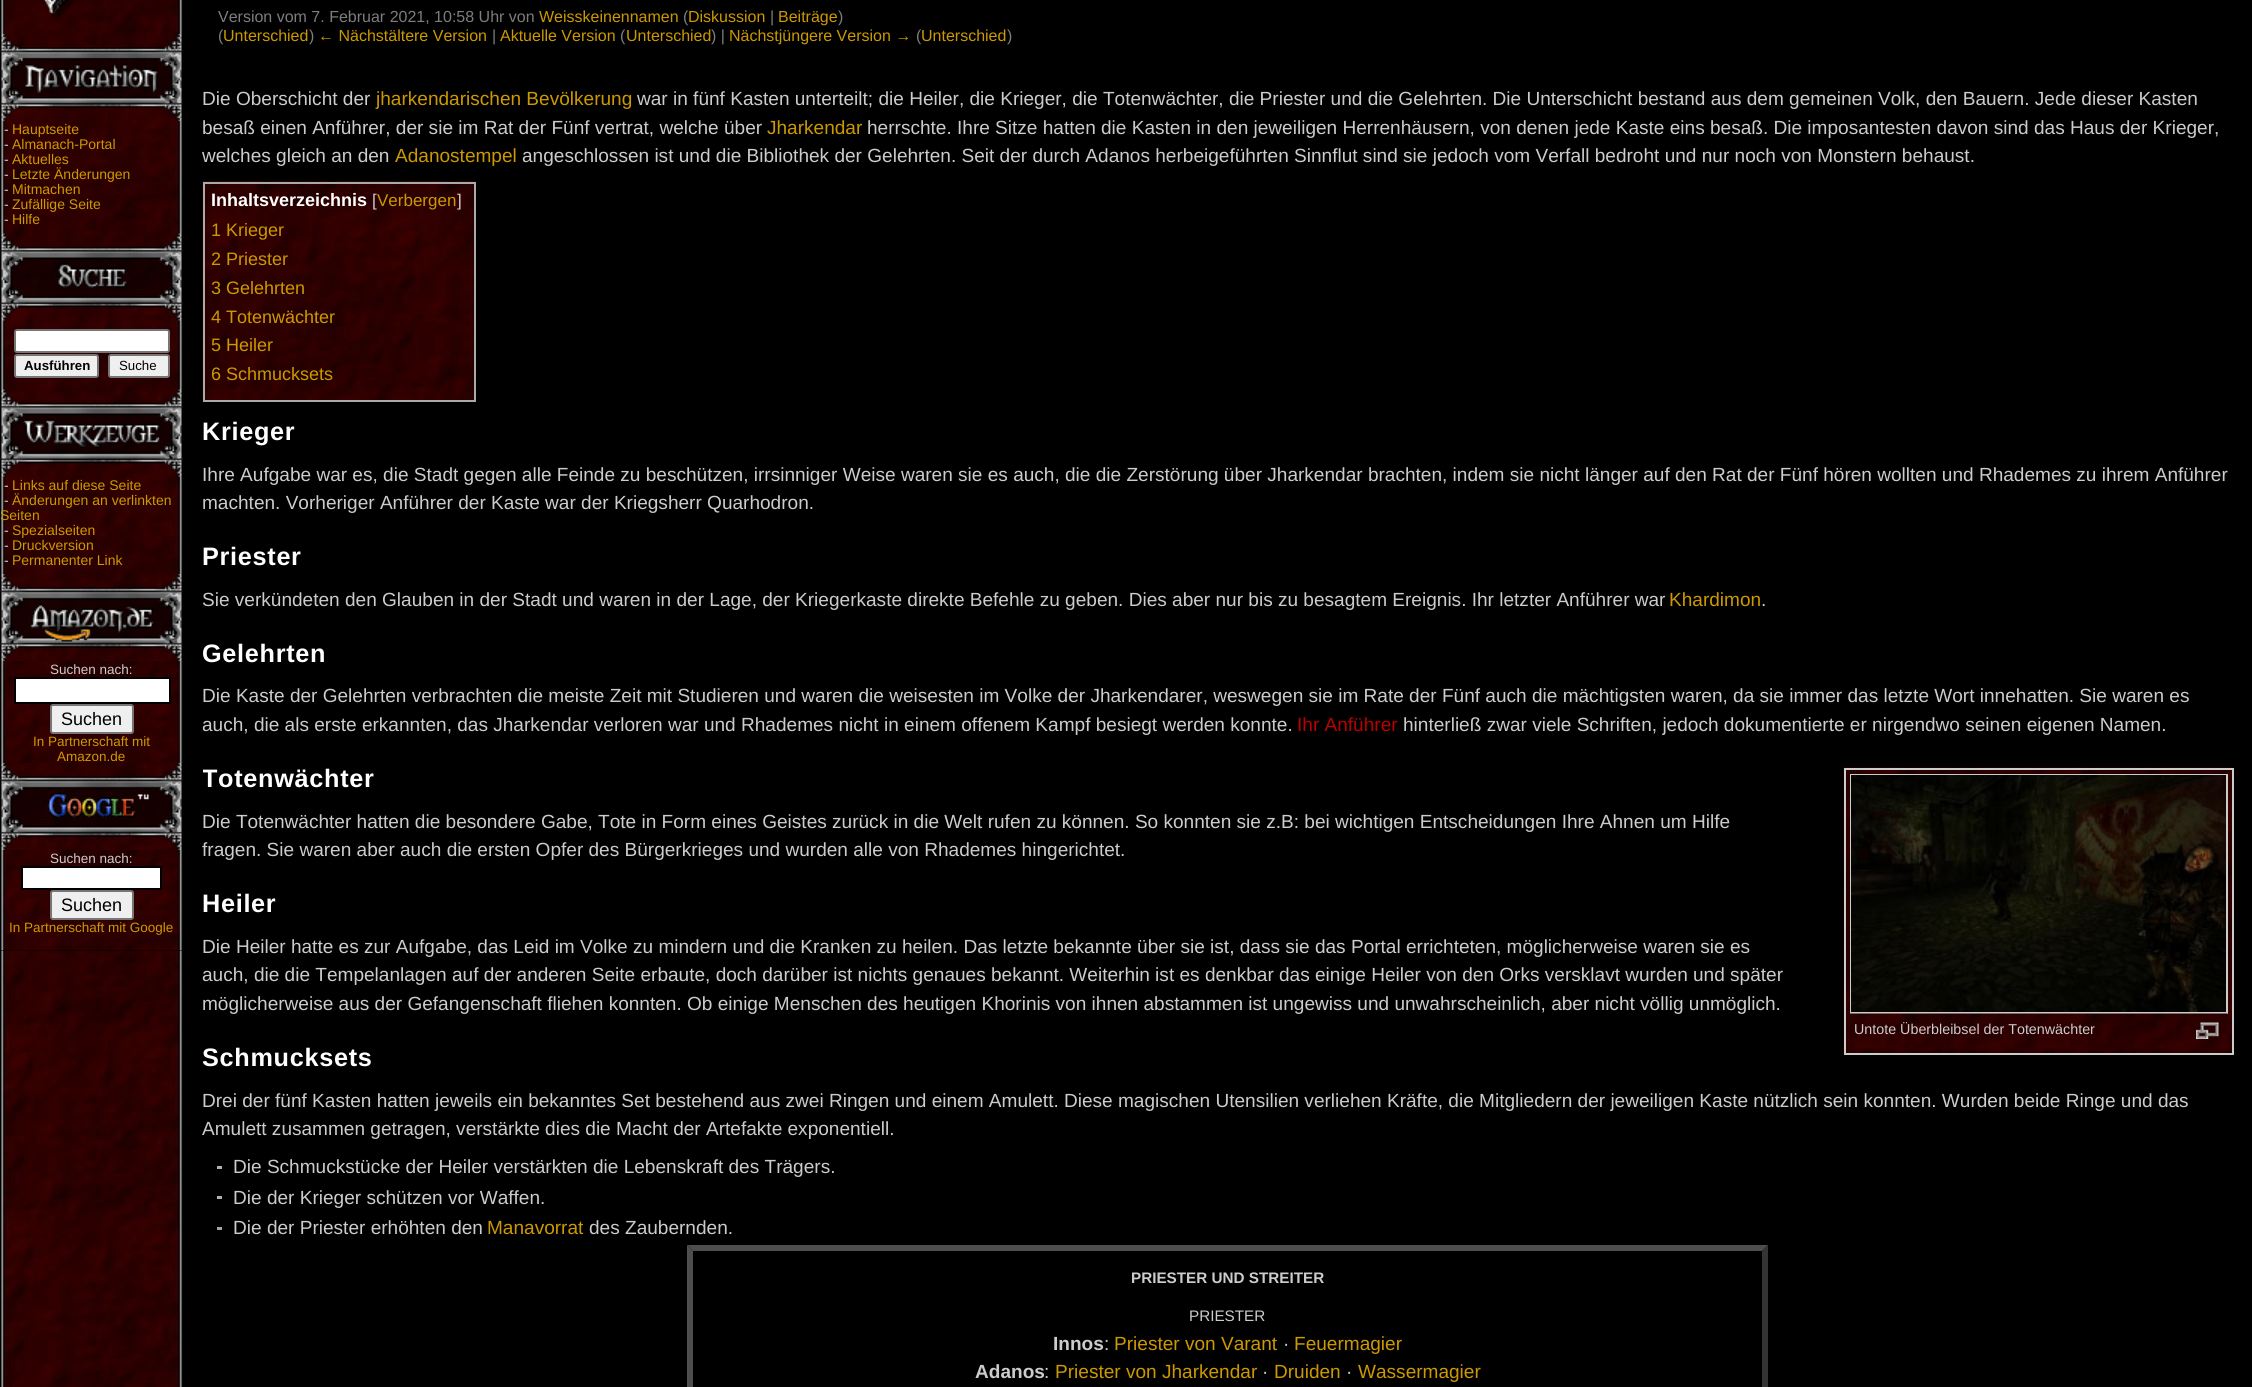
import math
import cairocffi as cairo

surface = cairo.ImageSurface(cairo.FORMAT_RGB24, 2252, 1387)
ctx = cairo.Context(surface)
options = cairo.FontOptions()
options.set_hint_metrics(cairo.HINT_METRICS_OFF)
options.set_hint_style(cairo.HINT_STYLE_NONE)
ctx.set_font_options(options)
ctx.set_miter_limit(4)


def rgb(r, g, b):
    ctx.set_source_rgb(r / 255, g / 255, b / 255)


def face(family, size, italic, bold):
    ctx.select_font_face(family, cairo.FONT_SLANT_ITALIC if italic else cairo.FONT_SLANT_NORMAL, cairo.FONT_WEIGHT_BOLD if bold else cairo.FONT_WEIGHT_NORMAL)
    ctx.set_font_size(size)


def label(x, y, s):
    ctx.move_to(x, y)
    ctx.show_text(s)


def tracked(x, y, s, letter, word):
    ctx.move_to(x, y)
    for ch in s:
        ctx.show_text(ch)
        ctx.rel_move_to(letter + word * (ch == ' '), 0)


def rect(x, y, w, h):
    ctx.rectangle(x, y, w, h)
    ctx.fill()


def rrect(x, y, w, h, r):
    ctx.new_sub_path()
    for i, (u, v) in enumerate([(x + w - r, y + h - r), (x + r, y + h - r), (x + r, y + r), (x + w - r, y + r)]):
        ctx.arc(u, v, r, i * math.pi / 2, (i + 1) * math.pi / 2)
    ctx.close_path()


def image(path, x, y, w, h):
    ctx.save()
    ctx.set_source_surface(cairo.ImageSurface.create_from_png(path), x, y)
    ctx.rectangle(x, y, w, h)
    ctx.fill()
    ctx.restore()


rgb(0, 0, 0)
ctx.paint()
image('image0.png', 0, 951, 183, 436)
image('image1.png', 0, 0, 183, 951)
image('image2.png', 42, 0, 36, 23)
image('image3.png', 0, 34, 183, 87)
image('image4.png', 24, 63, 134, 31)
face('Liberation Sans', 14, 0, 0)
rgb(204, 204, 204)
label(4, 134, '-')
rgb(204, 153, 0)
label(12, 134, 'Hauptseite')
rgb(204, 204, 204)
label(4, 149, '-')
rgb(204, 153, 0)
label(12, 149, 'Almanach-Portal')
rgb(204, 204, 204)
label(4, 164, '-')
rgb(204, 153, 0)
label(12, 164, 'Aktuelles')
rgb(204, 204, 204)
label(4, 179, '-')
rgb(204, 153, 0)
label(12, 179, 'Letzte Änderungen')
rgb(204, 204, 204)
label(4, 194, '-')
rgb(204, 153, 0)
label(12, 194, 'Mitmachen')
rgb(204, 204, 204)
label(4, 209, '-')
rgb(204, 153, 0)
label(12, 209, 'Zufällige Seite')
rgb(204, 204, 204)
label(4, 224, '-')
rgb(204, 153, 0)
label(12, 224, 'Hilfe')
image('image5.png', 0, 233, 183, 88)
image('image6.png', 57, 263, 70, 25)
rgb(255, 255, 255)
rrect(15, 330, 154, 22, 2)
ctx.fill_preserve()
rgb(118, 118, 118)
ctx.stroke()
rgb(239, 239, 239)
rrect(15, 355, 83, 22, 2)
ctx.fill_preserve()
rgb(118, 118, 118)
ctx.stroke()
face('Liberation Sans', 13.25, 0, 1)
rgb(0, 0, 0)
label(24, 370, 'Ausführen')
rgb(239, 239, 239)
rrect(109, 355, 60, 22, 2)
ctx.fill_preserve()
rgb(118, 118, 118)
ctx.stroke()
face('Liberation Sans', 13.25, 0, 0)
rgb(0, 0, 0)
label(119, 370, 'Suche')
image('image7.png', 0, 389, 183, 88)
image('image8.png', 23, 419, 138, 30)
face('Liberation Sans', 14, 0, 0)
rgb(204, 204, 204)
label(4, 490, '-')
rgb(204, 153, 0)
label(12, 490, 'Links auf diese Seite')
rgb(204, 204, 204)
label(4, 505, '-')
rgb(204, 153, 0)
label(12, 505, 'Änderungen an verlinkten')
label(0, 520, 'Seiten')
rgb(204, 204, 204)
label(4, 535, '-')
rgb(204, 153, 0)
label(12, 535, 'Spezialseiten')
rgb(204, 204, 204)
label(4, 550, '-')
rgb(204, 153, 0)
label(12, 550, 'Druckversion')
rgb(204, 204, 204)
label(4, 565, '-')
rgb(204, 153, 0)
label(12, 565, 'Permanenter Link')
image('image9.png', 0, 574, 183, 87)
image('image10.png', 30, 604, 124, 38)
image('image11.png', 6, 661, 173, 102)
face('Liberation Sans', 13.5, 0, 0)
rgb(204, 204, 204)
label(50, 674, 'Suchen nach:')
rgb(255, 255, 255)
ctx.rectangle(15, 678, 155, 25)
ctx.fill_preserve()
rgb(0, 0, 0)
ctx.stroke()
rgb(239, 239, 239)
rrect(51, 705, 82, 28, 2)
ctx.fill_preserve()
rgb(118, 118, 118)
ctx.stroke()
face('Liberation Sans', 18, 0, 0)
rgb(0, 0, 0)
label(61, 725, 'Suchen')
face('Liberation Sans', 13.5, 0, 0)
rgb(204, 153, 0)
label(33, 746, 'In Partnerschaft mit')
label(57, 761, 'Amazon.de')
image('image12.png', 0, 763, 183, 87)
image('image13.png', 47, 792, 102, 27)
image('image14.png', 6, 850, 173, 84)
rgb(204, 204, 204)
label(50, 863, 'Suchen nach:')
rgb(255, 255, 255)
ctx.rectangle(22, 867, 139, 22)
ctx.fill_preserve()
rgb(0, 0, 0)
ctx.stroke()
rgb(239, 239, 239)
rrect(51, 891, 82, 28, 2)
ctx.fill_preserve()
rgb(118, 118, 118)
ctx.stroke()
face('Liberation Sans', 18, 0, 0)
rgb(0, 0, 0)
label(61, 911, 'Suchen')
face('Liberation Sans', 13.5, 0, 0)
rgb(204, 153, 0)
label(9, 932, 'In Partnerschaft mit Google')
face('Liberation Sans', 16, 0, 0)
rgb(125, 125, 125)
label(218, 22, 'Version vom 7. Februar 2021, 10:58 Uhr von')
rgb(204, 153, 0)
label(539, 22, 'Weisskeinennamen')
rgb(125, 125, 125)
label(683, 22, '(')
rgb(204, 153, 0)
label(688, 22, 'Diskussion')
rgb(125, 125, 125)
label(770, 22, '|')
rgb(204, 153, 0)
label(778, 22, 'Beiträge')
rgb(125, 125, 125)
label(838, 22, ')')
label(218, 41, '(')
rgb(204, 153, 0)
label(223, 41, 'Unterschied')
rgb(125, 125, 125)
label(309, 41, ')')
rgb(204, 153, 0)
label(318, 41, '← Nächstältere Version')
rgb(125, 125, 125)
label(492, 41, '|')
rgb(204, 153, 0)
label(500, 41, 'Aktuelle Version')
rgb(125, 125, 125)
label(620, 41, '(')
rgb(204, 153, 0)
label(626, 41, 'Unterschied')
rgb(125, 125, 125)
label(711, 41, ') |')
rgb(204, 153, 0)
label(729, 41, 'Nächstjüngere Version →')
rgb(125, 125, 125)
label(916, 41, '(')
rgb(204, 153, 0)
label(921, 41, 'Unterschied')
rgb(125, 125, 125)
label(1007, 41, ')')
face('Liberation Sans', 19.05, 0, 0)
rgb(204, 204, 204)
label(202, 105, 'Die Oberschicht der')
rgb(204, 153, 0)
label(376, 105, 'jharkendarischen Bevölkerung')
rgb(204, 204, 204)
label(637, 105, 'war in fünf Kasten unterteilt; die Heiler, die Krieger, die Totenwächter, die Priester und die Gelehrten. Die Unterschicht bestand aus dem gemeinen Volk, den Bauern. Jede dieser Kasten')
label(202, 134, 'besaß einen Anführer, der sie im Rat der Fünf vertrat, welche über')
rgb(204, 153, 0)
label(767, 134, 'Jharkendar')
rgb(204, 204, 204)
label(867, 134, 'herrschte. Ihre Sitze hatten die Kasten in den jeweiligen Herrenhäusern, von denen jede Kaste eins besaß. Die imposantesten davon sind das Haus der Krieger,')
label(202, 162, 'welches gleich an den')
rgb(204, 153, 0)
label(395, 162, 'Adanostempel')
rgb(204, 204, 204)
label(522, 162, 'angeschlossen ist und die Bibliothek der Gelehrten. Seit der durch Adanos herbeigeführten Sinnflut sind sie jedoch vom Verfall bedroht und nur noch von Monstern behaust.')
image('image15.png', 202, 181, 274, 221)
ctx.rectangle(204, 183, 271, 218)
rgb(170, 170, 170)
ctx.stroke()
face('Liberation Sans', 18, 0, 1)
rgb(255, 255, 255)
label(211, 206, 'Inhaltsverzeichnis')
face('Liberation Sans', 17, 0, 0)
rgb(204, 204, 204)
label(372, 206, '[')
rgb(204, 153, 0)
label(377, 206, 'Verbergen')
rgb(204, 204, 204)
label(457, 206, ']')
face('Liberation Sans', 18, 0, 0)
rgb(204, 153, 0)
label(211, 236, '1 Krieger')
label(211, 265, '2 Priester')
label(211, 294, '3 Gelehrten')
label(211, 323, '4 Totenwächter')
label(211, 351, '5 Heiler')
label(211, 380, '6 Schmucksets')
face('Liberation Sans', 25.25, 0, 1)
rgb(255, 255, 255)
tracked(202, 440, 'Krieger', 0.7, 0)
face('Liberation Sans', 19.05, 0, 0)
rgb(204, 204, 204)
label(202, 481, 'Ihre Aufgabe war es, die Stadt gegen alle Feinde zu beschützen, irrsinniger Weise waren sie es auch, die die Zerstörung über Jharkendar brachten, indem sie nicht länger auf den Rat der Fünf hören wollten und Rhademes zu ihrem Anführer')
label(202, 509, 'machten. Vorheriger Anführer der Kaste war der Kriegsherr Quarhodron.')
face('Liberation Sans', 25.25, 0, 1)
rgb(255, 255, 255)
tracked(202, 565, 'Priester', 0.7, 0)
face('Liberation Sans', 19.05, 0, 0)
rgb(204, 204, 204)
label(202, 606, 'Sie verkündeten den Glauben in der Stadt und waren in der Lage, der Kriegerkaste direkte Befehle zu geben. Dies aber nur bis zu besagtem Ereignis. Ihr letzter Anführer war')
rgb(204, 153, 0)
label(1669, 606, 'Khardimon')
rgb(204, 204, 204)
label(1761, 606, '.')
face('Liberation Sans', 25.25, 0, 1)
rgb(255, 255, 255)
tracked(202, 662, 'Gelehrten', 0.7, 0)
face('Liberation Sans', 19.05, 0, 0)
rgb(204, 204, 204)
label(202, 702, 'Die Kaste der Gelehrten verbrachten die meiste Zeit mit Studieren und waren die weisesten im Volke der Jharkendarer, weswegen sie im Rate der Fünf auch die mächtigsten waren, da sie immer das letzte Wort innehatten. Sie waren es')
label(202, 731, 'auch, die als erste erkannten, das Jharkendar verloren war und Rhademes nicht in einem offenem Kampf besiegt werden konnte.')
rgb(186, 0, 0)
label(1297, 731, 'Ihr Anführer')
rgb(204, 204, 204)
label(1403, 731, 'hinterließ zwar viele Schriften, jedoch dokumentierte er nirgendwo seinen eigenen Namen.')
ctx.save()
ctx.rectangle(203, 750, 1590, 47)
ctx.clip()
face('Liberation Sans', 25.25, 0, 1)
rgb(255, 255, 255)
tracked(202, 787, 'Totenwächter', 0.7, 0)
ctx.restore()
label(202, 828, 'Die Totenwächter hatten die besondere Gabe, Tote in Form eines Geistes zurück in die Welt rufen zu können. So konnten sie z.B: bei wichtigen Entscheidungen Ihre Ahnen um Hilfe')
label(202, 856, 'fragen. Sie waren aber auch die ersten Opfer des Bürgerkrieges und wurden alle von Rhademes hingerichtet.')
face('Liberation Sans', 25.25, 0, 1)
rgb(255, 255, 255)
tracked(202, 912, 'Heiler', 0.7, 0)
face('Liberation Sans', 19.05, 0, 0)
rgb(204, 204, 204)
label(202, 953, 'Die Heiler hatte es zur Aufgabe, das Leid im Volke zu mindern und die Kranken zu heilen. Das letzte bekannte über sie ist, dass sie das Portal errichteten, möglicherweise waren sie es')
label(202, 981, 'auch, die die Tempelanlagen auf der anderen Seite erbaute, doch darüber ist nichts genaues bekannt. Weiterhin ist es denkbar das einige Heiler von den Orks versklavt wurden und später')
label(202, 1010, 'möglicherweise aus der Gefangenschaft fliehen konnten. Ob einige Menschen des heutigen Khorinis von ihnen abstammen ist ungewiss und unwahrscheinlich, aber nicht völlig unmöglich.')
image('image16.png', 1843, 767, 391, 287)
ctx.rectangle(1845, 769, 388, 285)
ctx.stroke()
ctx.rectangle(1851, 775, 376, 238)
ctx.stroke()
image('image17.png', 1851, 775, 375, 237)
image('image18.png', 1849, 1013, 379, 35)
face('Liberation Sans', 14.3, 0, 0)
label(1854, 1034, 'Untote Überbleibsel der Totenwächter')
image('image19.png', 2196, 1022, 23, 17)
face('Liberation Sans', 25.25, 0, 1)
rgb(255, 255, 255)
tracked(202, 1066, 'Schmucksets', 0.7, 0)
face('Liberation Sans', 19.05, 0, 0)
rgb(204, 204, 204)
label(202, 1107, 'Drei der fünf Kasten hatten jeweils ein bekanntes Set bestehend aus zwei Ringen und einem Amulett. Diese magischen Utensilien verliehen Kräfte, die Mitgliedern der jeweiligen Kaste nützlich sein konnten. Wurden beide Ringe und das')
label(202, 1135, 'Amulett zusammen getragen, verstärkte dies die Macht der Artefakte exponentiell.')
rgb(177, 177, 177)
rect(217, 1166, 5, 3)
rgb(204, 204, 204)
label(233, 1173, 'Die Schmuckstücke der Heiler verstärkten die Lebenskraft des Trägers.')
rgb(177, 177, 177)
rect(217, 1196, 5, 3)
rgb(204, 204, 204)
label(233, 1204, 'Die der Krieger schützen vor Waffen.')
rgb(164, 164, 164)
rect(217, 1227, 5, 3)
rgb(204, 204, 204)
label(233, 1234, 'Die der Priester erhöhten den')
rgb(204, 153, 0)
label(487, 1234, 'Manavorrat')
rgb(204, 204, 204)
label(589, 1234, 'des Zaubernden.')
rgb(78, 78, 78)
ctx.new_path()
ctx.move_to(687, 1245)
ctx.line_to(1768, 1245)
ctx.line_to(1762, 1251)
ctx.line_to(693, 1251)
ctx.close_path()
ctx.fill()
rgb(52, 52, 52)
ctx.new_path()
ctx.move_to(1768, 1245)
ctx.line_to(1768, 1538)
ctx.line_to(1762, 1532)
ctx.line_to(1762, 1251)
ctx.close_path()
ctx.fill()
rgb(78, 78, 78)
ctx.new_path()
ctx.move_to(687, 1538)
ctx.line_to(687, 1245)
ctx.line_to(693, 1251)
ctx.line_to(693, 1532)
ctx.close_path()
ctx.fill()
face('Liberation Sans', 15.25, 0, 1)
rgb(204, 204, 204)
label(1131, 1283, 'PRIESTER UND STREITER')
face('Liberation Sans', 15.25, 0, 0)
label(1189, 1321, 'PRIESTER')
face('Liberation Sans', 19.05, 0, 1)
label(1053, 1350, 'Innos')
face('Liberation Sans', 19.05, 0, 0)
label(1104, 1350, ':')
rgb(204, 153, 0)
label(1114, 1350, 'Priester von Varant')
rgb(204, 204, 204)
label(1283, 1350, '·')
rgb(204, 153, 0)
label(1294, 1350, 'Feuermagier')
face('Liberation Sans', 19.05, 0, 1)
rgb(204, 204, 204)
label(975, 1378, 'Adanos')
face('Liberation Sans', 19.05, 0, 0)
label(1044, 1378, ':')
rgb(204, 153, 0)
label(1055, 1378, 'Priester von Jharkendar')
rgb(204, 204, 204)
label(1262, 1378, '·')
rgb(204, 153, 0)
label(1274, 1378, 'Druiden')
rgb(204, 204, 204)
label(1346, 1378, '·')
rgb(204, 153, 0)
label(1358, 1378, 'Wassermagier')
surface.write_to_png('render.png')
